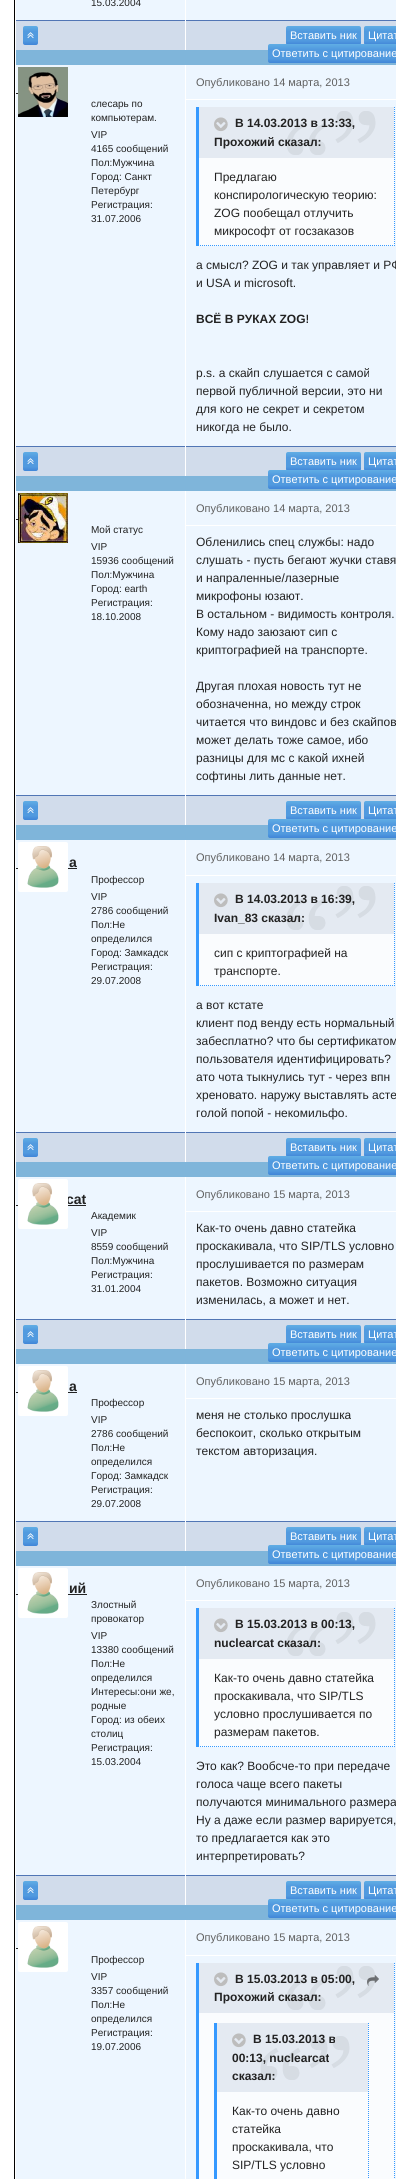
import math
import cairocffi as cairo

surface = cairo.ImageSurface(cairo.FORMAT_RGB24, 396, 2179)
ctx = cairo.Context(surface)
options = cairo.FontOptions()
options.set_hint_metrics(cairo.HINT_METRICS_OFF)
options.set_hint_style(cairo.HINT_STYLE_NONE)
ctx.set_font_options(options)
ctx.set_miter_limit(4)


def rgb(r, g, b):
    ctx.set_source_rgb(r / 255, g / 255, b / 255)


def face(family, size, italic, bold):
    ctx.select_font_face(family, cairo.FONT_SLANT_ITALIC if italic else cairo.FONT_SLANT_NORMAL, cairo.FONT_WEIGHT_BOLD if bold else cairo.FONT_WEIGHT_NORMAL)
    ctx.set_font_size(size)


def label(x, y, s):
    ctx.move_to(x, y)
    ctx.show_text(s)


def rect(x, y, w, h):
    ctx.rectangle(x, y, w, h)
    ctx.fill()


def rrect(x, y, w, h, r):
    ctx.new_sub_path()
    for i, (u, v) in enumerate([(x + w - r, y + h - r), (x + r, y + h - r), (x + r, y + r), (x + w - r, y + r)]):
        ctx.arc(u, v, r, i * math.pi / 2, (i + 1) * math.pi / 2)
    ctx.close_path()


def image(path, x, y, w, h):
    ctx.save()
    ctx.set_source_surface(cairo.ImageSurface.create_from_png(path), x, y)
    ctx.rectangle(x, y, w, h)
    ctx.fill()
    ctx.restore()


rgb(255, 255, 255)
ctx.paint()
ctx.rectangle(14.5, -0.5, 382, 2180)
rgb(0, 0, 0)
ctx.set_line_width(1)
ctx.stroke()
rgb(127, 181, 218)
rect(16, 50, 380, 15)
rgb(237, 246, 255)
rect(16, 0, 169, 20)
face('Liberation Sans', 10, 0, 0)
rgb(34, 34, 34)
label(91, 6, '15.03.2004')
rgb(209, 220, 235)
rect(16, 21, 169, 29)
rgb(81, 118, 181)
rect(16, 20, 169, 1)
gradient = cairo.LinearGradient(31, 26, 31, 45)
gradient.add_color_stop_rgba(0, 0.38, 0.682, 0.894, 1)
gradient.add_color_stop_rgba(0.28, 0.318, 0.604, 0.875, 1)
gradient.add_color_stop_rgba(0.77, 0.318, 0.604, 0.875, 1)
gradient.add_color_stop_rgba(1, 0.251, 0.522, 0.847, 1)
ctx.set_source(gradient)
rrect(23, 26, 15, 19, 2)
ctx.fill()
image('image0.png', 27, 32, 7, 7)
rgb(237, 246, 255)
rect(186, 0, 210, 20)
rgb(209, 220, 235)
rect(186, 21, 210, 29)
rgb(81, 118, 181)
rect(186, 20, 210, 1)
gradient = cairo.LinearGradient(324, 26, 324, 45)
gradient.add_color_stop_rgba(0, 0.38, 0.682, 0.894, 1)
gradient.add_color_stop_rgba(0.28, 0.318, 0.604, 0.875, 1)
gradient.add_color_stop_rgba(0.77, 0.318, 0.604, 0.875, 1)
gradient.add_color_stop_rgba(1, 0.251, 0.522, 0.847, 1)
ctx.set_source(gradient)
rrect(286, 26, 75, 19, 2)
ctx.fill()
face('Liberation Sans', 11, 0, 0)
rgb(255, 255, 255)
label(290, 39, 'Вставить ник')
gradient = cairo.LinearGradient(386, 26, 386, 45)
gradient.add_color_stop_rgba(0, 0.38, 0.682, 0.894, 1)
gradient.add_color_stop_rgba(0.28, 0.318, 0.604, 0.875, 1)
gradient.add_color_stop_rgba(0.77, 0.318, 0.604, 0.875, 1)
gradient.add_color_stop_rgba(1, 0.251, 0.522, 0.847, 1)
ctx.set_source(gradient)
rrect(364, 26, 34, 19, 2)
ctx.fill()
rgb(255, 255, 255)
label(368, 39, 'Цитат')
gradient = cairo.LinearGradient(338, 44, 338, 63)
gradient.add_color_stop_rgba(0, 0.38, 0.682, 0.894, 1)
gradient.add_color_stop_rgba(0.28, 0.318, 0.604, 0.875, 1)
gradient.add_color_stop_rgba(0.77, 0.318, 0.604, 0.875, 1)
gradient.add_color_stop_rgba(1, 0.251, 0.522, 0.847, 1)
ctx.set_source(gradient)
rrect(268, 44, 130, 19, 2)
ctx.fill()
rgb(255, 255, 255)
label(272, 57, 'Ответить с цитирование')
rgb(127, 181, 218)
rect(16, 476, 380, 15)
rgb(237, 246, 255)
rect(16, 65, 169, 381)
rgb(34, 34, 34)
rect(16, 93, 2, 1)
image('image1.png', 18, 67, 50, 50)
face('Liberation Sans', 10, 0, 0)
label(91, 107, 'слесарь по')
label(91, 121, 'компьютерам.')
label(91, 138, 'VIP')
label(91, 152, '4165 сообщений')
label(91, 166, 'Пол:Мужчина')
label(91, 180, 'Город: Санкт')
label(91, 194, 'Петербург')
label(91, 208, 'Регистрация:')
label(91, 222, '31.07.2006')
rgb(209, 220, 235)
rect(16, 447, 169, 29)
rgb(81, 118, 181)
rect(16, 446, 169, 1)
gradient = cairo.LinearGradient(31, 452, 31, 471)
gradient.add_color_stop_rgba(0, 0.38, 0.682, 0.894, 1)
gradient.add_color_stop_rgba(0.28, 0.318, 0.604, 0.875, 1)
gradient.add_color_stop_rgba(0.77, 0.318, 0.604, 0.875, 1)
gradient.add_color_stop_rgba(1, 0.251, 0.522, 0.847, 1)
ctx.set_source(gradient)
rrect(23, 452, 15, 19, 2)
ctx.fill()
image('image0.png', 27, 458, 7, 7)
rgb(237, 246, 255)
rect(186, 65, 210, 381)
rgb(255, 255, 255)
rect(186, 99, 210, 1)
face('Liberation Sans', 11, 0, 0)
rgb(96, 96, 96)
label(196, 86, 'Опубликовано 14 марта, 2013')
rgb(250, 252, 254)
rect(199, 108, 196, 138)
ctx.new_path()
ctx.move_to(394.5, 107)
ctx.line_to(394.5, 246)
rgb(53, 153, 255)
ctx.set_dash([1, 1])
ctx.stroke()
ctx.new_path()
ctx.move_to(196, 245.5)
ctx.line_to(395, 245.5)
ctx.stroke()
rect(196, 107, 3, 139)
rgb(228, 234, 242)
rect(199, 107, 195, 51)
image('image2.png', 286, 111, 90, 44)
image('image3.png', 214, 117, 14, 15)
face('Liberation Sans', 12, 0, 1)
rgb(34, 34, 34)
label(235, 127, 'В 14.03.2013 в 13:33,')
label(214, 146, 'Прохожий сказал:')
face('Liberation Sans', 12, 0, 0)
label(214, 181, 'Предлагаю')
label(214, 199, 'конспирологическую теорию:')
label(214, 217, 'ZOG пообещал отлучить')
label(214, 235, 'микрософт от госзаказов')
label(196, 269, 'а смысл? ZOG и так управляет и РФ')
label(196, 287, 'и USA и microsoft.')
face('Liberation Sans', 12, 0, 1)
label(196, 323, 'ВСЁ В РУКАХ ZOG!')
face('Liberation Sans', 12, 0, 0)
label(196, 377, 'p.s. а скайп слушается c самой')
label(196, 395, 'первой публичной версии, это ни')
label(196, 413, 'для кого не секрет и секретом')
label(196, 431, 'никогда не было.')
rgb(209, 220, 235)
rect(186, 447, 210, 29)
rgb(81, 118, 181)
rect(186, 446, 210, 1)
gradient = cairo.LinearGradient(324, 452, 324, 471)
gradient.add_color_stop_rgba(0, 0.38, 0.682, 0.894, 1)
gradient.add_color_stop_rgba(0.28, 0.318, 0.604, 0.875, 1)
gradient.add_color_stop_rgba(0.77, 0.318, 0.604, 0.875, 1)
gradient.add_color_stop_rgba(1, 0.251, 0.522, 0.847, 1)
ctx.set_source(gradient)
rrect(286, 452, 75, 19, 2)
ctx.fill()
face('Liberation Sans', 11, 0, 0)
rgb(255, 255, 255)
label(290, 465, 'Вставить ник')
gradient = cairo.LinearGradient(386, 452, 386, 471)
gradient.add_color_stop_rgba(0, 0.38, 0.682, 0.894, 1)
gradient.add_color_stop_rgba(0.28, 0.318, 0.604, 0.875, 1)
gradient.add_color_stop_rgba(0.77, 0.318, 0.604, 0.875, 1)
gradient.add_color_stop_rgba(1, 0.251, 0.522, 0.847, 1)
ctx.set_source(gradient)
rrect(364, 452, 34, 19, 2)
ctx.fill()
rgb(255, 255, 255)
label(368, 465, 'Цитат')
gradient = cairo.LinearGradient(338, 470, 338, 489)
gradient.add_color_stop_rgba(0, 0.38, 0.682, 0.894, 1)
gradient.add_color_stop_rgba(0.28, 0.318, 0.604, 0.875, 1)
gradient.add_color_stop_rgba(0.77, 0.318, 0.604, 0.875, 1)
gradient.add_color_stop_rgba(1, 0.251, 0.522, 0.847, 1)
ctx.set_source(gradient)
rrect(268, 470, 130, 19, 2)
ctx.fill()
rgb(255, 255, 255)
label(272, 483, 'Ответить с цитирование')
rgb(127, 181, 218)
rect(16, 825, 380, 15)
rgb(237, 246, 255)
rect(16, 491, 169, 304)
rgb(34, 34, 34)
rect(16, 519, 2, 1)
image('image4.png', 18, 493, 50, 50)
face('Liberation Sans', 10, 0, 0)
label(91, 533, 'Мой статус')
label(91, 550, 'VIP')
label(91, 564, '15936 сообщений')
label(91, 578, 'Пол:Мужчина')
label(91, 592, 'Город: earth')
label(91, 606, 'Регистрация:')
label(91, 620, '18.10.2008')
rgb(209, 220, 235)
rect(16, 796, 169, 29)
rgb(81, 118, 181)
rect(16, 795, 169, 1)
gradient = cairo.LinearGradient(31, 801, 31, 820)
gradient.add_color_stop_rgba(0, 0.38, 0.682, 0.894, 1)
gradient.add_color_stop_rgba(0.28, 0.318, 0.604, 0.875, 1)
gradient.add_color_stop_rgba(0.77, 0.318, 0.604, 0.875, 1)
gradient.add_color_stop_rgba(1, 0.251, 0.522, 0.847, 1)
ctx.set_source(gradient)
rrect(23, 801, 15, 19, 2)
ctx.fill()
image('image0.png', 27, 807, 7, 7)
rgb(237, 246, 255)
rect(186, 491, 210, 304)
rgb(255, 255, 255)
rect(186, 525, 210, 1)
face('Liberation Sans', 11, 0, 0)
rgb(96, 96, 96)
label(196, 512, 'Опубликовано 14 марта, 2013')
face('Liberation Sans', 12, 0, 0)
rgb(34, 34, 34)
label(196, 546, 'Обленились спец службы: надо')
label(196, 564, 'слушать - пусть бегают жучки ставя')
label(196, 582, 'и напраленные/лазерные')
label(196, 600, 'микрофоны юзают.')
label(196, 618, 'В остальном - видимость контроля.')
label(196, 636, 'Кому надо заюзают сип с')
label(196, 654, 'криптографией на транспорте.')
label(196, 690, 'Другая плохая новость тут не')
label(196, 708, 'обозначенна, но между строк')
label(196, 726, 'читается что виндовс и без скайпов')
label(196, 744, 'может делать тоже самое, ибо')
label(196, 762, 'разницы для мс с какой ихней')
label(196, 780, 'софтины лить данные нет.')
rgb(209, 220, 235)
rect(186, 796, 210, 29)
rgb(81, 118, 181)
rect(186, 795, 210, 1)
gradient = cairo.LinearGradient(324, 801, 324, 820)
gradient.add_color_stop_rgba(0, 0.38, 0.682, 0.894, 1)
gradient.add_color_stop_rgba(0.28, 0.318, 0.604, 0.875, 1)
gradient.add_color_stop_rgba(0.77, 0.318, 0.604, 0.875, 1)
gradient.add_color_stop_rgba(1, 0.251, 0.522, 0.847, 1)
ctx.set_source(gradient)
rrect(286, 801, 75, 19, 2)
ctx.fill()
face('Liberation Sans', 11, 0, 0)
rgb(255, 255, 255)
label(290, 814, 'Вставить ник')
gradient = cairo.LinearGradient(386, 801, 386, 820)
gradient.add_color_stop_rgba(0, 0.38, 0.682, 0.894, 1)
gradient.add_color_stop_rgba(0.28, 0.318, 0.604, 0.875, 1)
gradient.add_color_stop_rgba(0.77, 0.318, 0.604, 0.875, 1)
gradient.add_color_stop_rgba(1, 0.251, 0.522, 0.847, 1)
ctx.set_source(gradient)
rrect(364, 801, 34, 19, 2)
ctx.fill()
rgb(255, 255, 255)
label(368, 814, 'Цитат')
gradient = cairo.LinearGradient(338, 819, 338, 838)
gradient.add_color_stop_rgba(0, 0.38, 0.682, 0.894, 1)
gradient.add_color_stop_rgba(0.28, 0.318, 0.604, 0.875, 1)
gradient.add_color_stop_rgba(0.77, 0.318, 0.604, 0.875, 1)
gradient.add_color_stop_rgba(1, 0.251, 0.522, 0.847, 1)
ctx.set_source(gradient)
rrect(268, 819, 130, 19, 2)
ctx.fill()
rgb(255, 255, 255)
label(272, 832, 'Ответить с цитирование')
rgb(127, 181, 218)
rect(16, 1162, 380, 15)
rgb(237, 246, 255)
rect(16, 840, 169, 292)
rgb(34, 34, 34)
rect(16, 868, 61, 1)
rgb(255, 255, 255)
rrect(18, 842, 50, 50, 2)
ctx.fill()
image('image5.png', 27, 846, 32, 42)
face('Liberation Sans', 14, 0, 1)
rgb(34, 34, 34)
label(69, 867, 'a')
face('Liberation Sans', 10, 0, 0)
label(91, 883, 'Профессор')
label(91, 900, 'VIP')
label(91, 914, '2786 сообщений')
label(91, 928, 'Пол:Не')
label(91, 942, 'определился')
label(91, 956, 'Город: Замкадск')
label(91, 970, 'Регистрация:')
label(91, 984, '29.07.2008')
rgb(209, 220, 235)
rect(16, 1133, 169, 29)
rgb(81, 118, 181)
rect(16, 1132, 169, 1)
gradient = cairo.LinearGradient(31, 1138, 31, 1157)
gradient.add_color_stop_rgba(0, 0.38, 0.682, 0.894, 1)
gradient.add_color_stop_rgba(0.28, 0.318, 0.604, 0.875, 1)
gradient.add_color_stop_rgba(0.77, 0.318, 0.604, 0.875, 1)
gradient.add_color_stop_rgba(1, 0.251, 0.522, 0.847, 1)
ctx.set_source(gradient)
rrect(23, 1138, 15, 19, 2)
ctx.fill()
image('image0.png', 27, 1144, 7, 7)
rgb(237, 246, 255)
rect(186, 840, 210, 292)
rgb(255, 255, 255)
rect(186, 875, 210, 1)
face('Liberation Sans', 11, 0, 0)
rgb(96, 96, 96)
label(196, 861, 'Опубликовано 14 марта, 2013')
rgb(250, 252, 254)
rect(199, 884, 196, 102)
ctx.new_path()
ctx.move_to(394.5, 883)
ctx.line_to(394.5, 986)
rgb(53, 153, 255)
ctx.stroke()
ctx.new_path()
ctx.move_to(196, 985.5)
ctx.line_to(395, 985.5)
ctx.stroke()
rect(196, 883, 3, 103)
rgb(228, 234, 242)
rect(199, 883, 195, 51)
image('image2.png', 286, 886, 90, 44)
image('image3.png', 214, 893, 14, 15)
face('Liberation Sans', 12, 0, 1)
rgb(34, 34, 34)
label(235, 903, 'В 14.03.2013 в 16:39,')
label(214, 922, 'Ivan_83 сказал:')
face('Liberation Sans', 12, 0, 0)
label(214, 957, 'сип с криптографией на')
label(214, 975, 'транспорте.')
label(196, 1009, 'а вот кстате')
label(196, 1027, 'клиент под венду есть нормальный')
label(196, 1045, 'забесплатно? что бы сертификатом')
label(196, 1063, 'пользователя идентифицировать?')
label(196, 1081, 'ато чота тыкнулись тут - через впн')
label(196, 1099, 'хреновато. наружу выставлять асте')
label(196, 1117, 'голой попой - некомильфо.')
rgb(209, 220, 235)
rect(186, 1133, 210, 29)
rgb(81, 118, 181)
rect(186, 1132, 210, 1)
gradient = cairo.LinearGradient(324, 1138, 324, 1157)
gradient.add_color_stop_rgba(0, 0.38, 0.682, 0.894, 1)
gradient.add_color_stop_rgba(0.28, 0.318, 0.604, 0.875, 1)
gradient.add_color_stop_rgba(0.77, 0.318, 0.604, 0.875, 1)
gradient.add_color_stop_rgba(1, 0.251, 0.522, 0.847, 1)
ctx.set_source(gradient)
rrect(286, 1138, 75, 19, 2)
ctx.fill()
face('Liberation Sans', 11, 0, 0)
rgb(255, 255, 255)
label(290, 1151, 'Вставить ник')
gradient = cairo.LinearGradient(386, 1138, 386, 1157)
gradient.add_color_stop_rgba(0, 0.38, 0.682, 0.894, 1)
gradient.add_color_stop_rgba(0.28, 0.318, 0.604, 0.875, 1)
gradient.add_color_stop_rgba(0.77, 0.318, 0.604, 0.875, 1)
gradient.add_color_stop_rgba(1, 0.251, 0.522, 0.847, 1)
ctx.set_source(gradient)
rrect(364, 1138, 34, 19, 2)
ctx.fill()
rgb(255, 255, 255)
label(368, 1151, 'Цитат')
gradient = cairo.LinearGradient(338, 1156, 338, 1175)
gradient.add_color_stop_rgba(0, 0.38, 0.682, 0.894, 1)
gradient.add_color_stop_rgba(0.28, 0.318, 0.604, 0.875, 1)
gradient.add_color_stop_rgba(0.77, 0.318, 0.604, 0.875, 1)
gradient.add_color_stop_rgba(1, 0.251, 0.522, 0.847, 1)
ctx.set_source(gradient)
rrect(268, 1156, 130, 19, 2)
ctx.fill()
rgb(255, 255, 255)
label(272, 1169, 'Ответить с цитирование')
rgb(127, 181, 218)
rect(16, 1349, 380, 15)
rgb(237, 246, 255)
rect(16, 1177, 169, 142)
face('Liberation Sans', 14, 0, 1)
rgb(34, 34, 34)
label(66, 1204, 'cat')
rect(16, 1205, 70, 1)
rgb(255, 255, 255)
rrect(18, 1179, 50, 50, 2)
ctx.fill()
image('image5.png', 27, 1183, 32, 42)
face('Liberation Sans', 10, 0, 0)
rgb(34, 34, 34)
label(91, 1219, 'Академик')
label(91, 1236, 'VIP')
label(91, 1250, '8559 сообщений')
label(91, 1264, 'Пол:Мужчина')
label(91, 1278, 'Регистрация:')
label(91, 1292, '31.01.2004')
rgb(209, 220, 235)
rect(16, 1320, 169, 29)
rgb(81, 118, 181)
rect(16, 1319, 169, 1)
gradient = cairo.LinearGradient(31, 1325, 31, 1344)
gradient.add_color_stop_rgba(0, 0.38, 0.682, 0.894, 1)
gradient.add_color_stop_rgba(0.28, 0.318, 0.604, 0.875, 1)
gradient.add_color_stop_rgba(0.77, 0.318, 0.604, 0.875, 1)
gradient.add_color_stop_rgba(1, 0.251, 0.522, 0.847, 1)
ctx.set_source(gradient)
rrect(23, 1325, 15, 19, 2)
ctx.fill()
image('image0.png', 27, 1331, 7, 7)
rgb(237, 246, 255)
rect(186, 1177, 210, 142)
rgb(255, 255, 255)
rect(186, 1211, 210, 1)
face('Liberation Sans', 11, 0, 0)
rgb(96, 96, 96)
label(196, 1198, 'Опубликовано 15 марта, 2013')
face('Liberation Sans', 12, 0, 0)
rgb(34, 34, 34)
label(196, 1232, 'Как-то очень давно статейка')
label(196, 1250, 'проскакивала, что SIP/TLS условно')
label(196, 1268, 'прослушивается по размерам')
label(196, 1286, 'пакетов. Возможно ситуация')
label(196, 1304, 'изменилась, а может и нет.')
rgb(209, 220, 235)
rect(186, 1320, 210, 29)
rgb(81, 118, 181)
rect(186, 1319, 210, 1)
gradient = cairo.LinearGradient(324, 1325, 324, 1344)
gradient.add_color_stop_rgba(0, 0.38, 0.682, 0.894, 1)
gradient.add_color_stop_rgba(0.28, 0.318, 0.604, 0.875, 1)
gradient.add_color_stop_rgba(0.77, 0.318, 0.604, 0.875, 1)
gradient.add_color_stop_rgba(1, 0.251, 0.522, 0.847, 1)
ctx.set_source(gradient)
rrect(286, 1325, 75, 19, 2)
ctx.fill()
face('Liberation Sans', 11, 0, 0)
rgb(255, 255, 255)
label(290, 1338, 'Вставить ник')
gradient = cairo.LinearGradient(386, 1325, 386, 1344)
gradient.add_color_stop_rgba(0, 0.38, 0.682, 0.894, 1)
gradient.add_color_stop_rgba(0.28, 0.318, 0.604, 0.875, 1)
gradient.add_color_stop_rgba(0.77, 0.318, 0.604, 0.875, 1)
gradient.add_color_stop_rgba(1, 0.251, 0.522, 0.847, 1)
ctx.set_source(gradient)
rrect(364, 1325, 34, 19, 2)
ctx.fill()
rgb(255, 255, 255)
label(368, 1338, 'Цитат')
gradient = cairo.LinearGradient(338, 1343, 338, 1362)
gradient.add_color_stop_rgba(0, 0.38, 0.682, 0.894, 1)
gradient.add_color_stop_rgba(0.28, 0.318, 0.604, 0.875, 1)
gradient.add_color_stop_rgba(0.77, 0.318, 0.604, 0.875, 1)
gradient.add_color_stop_rgba(1, 0.251, 0.522, 0.847, 1)
ctx.set_source(gradient)
rrect(268, 1343, 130, 19, 2)
ctx.fill()
rgb(255, 255, 255)
label(272, 1356, 'Ответить с цитирование')
rgb(127, 181, 218)
rect(16, 1551, 380, 15)
rgb(237, 246, 255)
rect(16, 1364, 169, 157)
rgb(34, 34, 34)
rect(16, 1392, 61, 1)
rgb(255, 255, 255)
rrect(18, 1366, 50, 50, 2)
ctx.fill()
image('image5.png', 27, 1370, 32, 42)
face('Liberation Sans', 14, 0, 1)
rgb(34, 34, 34)
label(69, 1391, 'a')
face('Liberation Sans', 10, 0, 0)
label(91, 1406, 'Профессор')
label(91, 1423, 'VIP')
label(91, 1437, '2786 сообщений')
label(91, 1451, 'Пол:Не')
label(91, 1465, 'определился')
label(91, 1479, 'Город: Замкадск')
label(91, 1493, 'Регистрация:')
label(91, 1507, '29.07.2008')
rgb(209, 220, 235)
rect(16, 1522, 169, 29)
rgb(81, 118, 181)
rect(16, 1521, 169, 1)
gradient = cairo.LinearGradient(31, 1527, 31, 1546)
gradient.add_color_stop_rgba(0, 0.38, 0.682, 0.894, 1)
gradient.add_color_stop_rgba(0.28, 0.318, 0.604, 0.875, 1)
gradient.add_color_stop_rgba(0.77, 0.318, 0.604, 0.875, 1)
gradient.add_color_stop_rgba(1, 0.251, 0.522, 0.847, 1)
ctx.set_source(gradient)
rrect(23, 1527, 15, 19, 2)
ctx.fill()
image('image0.png', 27, 1533, 7, 7)
rgb(237, 246, 255)
rect(186, 1364, 210, 157)
rgb(255, 255, 255)
rect(186, 1398, 210, 1)
face('Liberation Sans', 11, 0, 0)
rgb(96, 96, 96)
label(196, 1385, 'Опубликовано 15 марта, 2013')
face('Liberation Sans', 12, 0, 0)
rgb(34, 34, 34)
label(196, 1419, 'меня не столько прослушка')
label(196, 1437, 'беспокоит, сколько открытым')
label(196, 1455, 'текстом авторизация.')
rgb(209, 220, 235)
rect(186, 1522, 210, 29)
rgb(81, 118, 181)
rect(186, 1521, 210, 1)
gradient = cairo.LinearGradient(324, 1527, 324, 1546)
gradient.add_color_stop_rgba(0, 0.38, 0.682, 0.894, 1)
gradient.add_color_stop_rgba(0.28, 0.318, 0.604, 0.875, 1)
gradient.add_color_stop_rgba(0.77, 0.318, 0.604, 0.875, 1)
gradient.add_color_stop_rgba(1, 0.251, 0.522, 0.847, 1)
ctx.set_source(gradient)
rrect(286, 1527, 75, 19, 2)
ctx.fill()
face('Liberation Sans', 11, 0, 0)
rgb(255, 255, 255)
label(290, 1540, 'Вставить ник')
gradient = cairo.LinearGradient(386, 1527, 386, 1546)
gradient.add_color_stop_rgba(0, 0.38, 0.682, 0.894, 1)
gradient.add_color_stop_rgba(0.28, 0.318, 0.604, 0.875, 1)
gradient.add_color_stop_rgba(0.77, 0.318, 0.604, 0.875, 1)
gradient.add_color_stop_rgba(1, 0.251, 0.522, 0.847, 1)
ctx.set_source(gradient)
rrect(364, 1527, 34, 19, 2)
ctx.fill()
rgb(255, 255, 255)
label(368, 1540, 'Цитат')
gradient = cairo.LinearGradient(338, 1545, 338, 1564)
gradient.add_color_stop_rgba(0, 0.38, 0.682, 0.894, 1)
gradient.add_color_stop_rgba(0.28, 0.318, 0.604, 0.875, 1)
gradient.add_color_stop_rgba(0.77, 0.318, 0.604, 0.875, 1)
gradient.add_color_stop_rgba(1, 0.251, 0.522, 0.847, 1)
ctx.set_source(gradient)
rrect(268, 1545, 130, 19, 2)
ctx.fill()
rgb(255, 255, 255)
label(272, 1558, 'Ответить с цитирование')
rgb(127, 181, 218)
rect(16, 1905, 380, 15)
rgb(237, 246, 255)
rect(16, 1566, 169, 309)
rgb(34, 34, 34)
rect(16, 1594, 71, 1)
rgb(255, 255, 255)
rrect(18, 1568, 50, 50, 2)
ctx.fill()
image('image5.png', 27, 1572, 32, 42)
face('Liberation Sans', 14, 0, 1)
rgb(34, 34, 34)
label(69, 1593, 'ий')
face('Liberation Sans', 10, 0, 0)
label(91, 1608, 'Злостный')
label(91, 1622, 'провокатор')
label(91, 1639, 'VIP')
label(91, 1653, '13380 сообщений')
label(91, 1667, 'Пол:Не')
label(91, 1681, 'определился')
label(91, 1695, 'Интересы:они же,')
label(91, 1709, 'родные')
label(91, 1723, 'Город: из обеих')
label(91, 1737, 'столиц')
label(91, 1751, 'Регистрация:')
label(91, 1765, '15.03.2004')
rgb(209, 220, 235)
rect(16, 1876, 169, 29)
rgb(81, 118, 181)
rect(16, 1875, 169, 1)
gradient = cairo.LinearGradient(31, 1881, 31, 1900)
gradient.add_color_stop_rgba(0, 0.38, 0.682, 0.894, 1)
gradient.add_color_stop_rgba(0.28, 0.318, 0.604, 0.875, 1)
gradient.add_color_stop_rgba(0.77, 0.318, 0.604, 0.875, 1)
gradient.add_color_stop_rgba(1, 0.251, 0.522, 0.847, 1)
ctx.set_source(gradient)
rrect(23, 1881, 15, 19, 2)
ctx.fill()
image('image0.png', 27, 1887, 7, 7)
rgb(237, 246, 255)
rect(186, 1566, 210, 309)
rgb(255, 255, 255)
rect(186, 1600, 210, 1)
face('Liberation Sans', 11, 0, 0)
rgb(96, 96, 96)
label(196, 1587, 'Опубликовано 15 марта, 2013')
rgb(250, 252, 254)
rect(199, 1609, 196, 138)
ctx.new_path()
ctx.move_to(394.5, 1608)
ctx.line_to(394.5, 1747)
rgb(53, 153, 255)
ctx.stroke()
ctx.new_path()
ctx.move_to(196, 1746.5)
ctx.line_to(395, 1746.5)
ctx.stroke()
rect(196, 1608, 3, 139)
rgb(228, 234, 242)
rect(199, 1608, 195, 51)
image('image2.png', 286, 1612, 90, 44)
image('image3.png', 214, 1618, 14, 15)
face('Liberation Sans', 12, 0, 1)
rgb(34, 34, 34)
label(235, 1628, 'В 15.03.2013 в 00:13,')
label(214, 1647, 'nuclearcat сказал:')
face('Liberation Sans', 12, 0, 0)
label(214, 1682, 'Как-то очень давно статейка')
label(214, 1700, 'проскакивала, что SIP/TLS')
label(214, 1718, 'условно прослушивается по')
label(214, 1736, 'размерам пакетов.')
label(196, 1770, 'Это как? Вообсче-то при передаче')
label(196, 1788, 'голоса чаще всего пакеты')
label(196, 1806, 'получаются минимального размера')
label(196, 1824, 'Ну а даже если размер варируется,')
label(196, 1842, 'то предлагается как это')
label(196, 1860, 'интерпретировать?')
rgb(209, 220, 235)
rect(186, 1876, 210, 29)
rgb(81, 118, 181)
rect(186, 1875, 210, 1)
gradient = cairo.LinearGradient(324, 1881, 324, 1900)
gradient.add_color_stop_rgba(0, 0.38, 0.682, 0.894, 1)
gradient.add_color_stop_rgba(0.28, 0.318, 0.604, 0.875, 1)
gradient.add_color_stop_rgba(0.77, 0.318, 0.604, 0.875, 1)
gradient.add_color_stop_rgba(1, 0.251, 0.522, 0.847, 1)
ctx.set_source(gradient)
rrect(286, 1881, 75, 19, 2)
ctx.fill()
face('Liberation Sans', 11, 0, 0)
rgb(255, 255, 255)
label(290, 1894, 'Вставить ник')
gradient = cairo.LinearGradient(386, 1881, 386, 1900)
gradient.add_color_stop_rgba(0, 0.38, 0.682, 0.894, 1)
gradient.add_color_stop_rgba(0.28, 0.318, 0.604, 0.875, 1)
gradient.add_color_stop_rgba(0.77, 0.318, 0.604, 0.875, 1)
gradient.add_color_stop_rgba(1, 0.251, 0.522, 0.847, 1)
ctx.set_source(gradient)
rrect(364, 1881, 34, 19, 2)
ctx.fill()
rgb(255, 255, 255)
label(368, 1894, 'Цитат')
gradient = cairo.LinearGradient(338, 1899, 338, 1918)
gradient.add_color_stop_rgba(0, 0.38, 0.682, 0.894, 1)
gradient.add_color_stop_rgba(0.28, 0.318, 0.604, 0.875, 1)
gradient.add_color_stop_rgba(0.77, 0.318, 0.604, 0.875, 1)
gradient.add_color_stop_rgba(1, 0.251, 0.522, 0.847, 1)
ctx.set_source(gradient)
rrect(268, 1899, 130, 19, 2)
ctx.fill()
rgb(255, 255, 255)
label(272, 1912, 'Ответить с цитирование')
rgb(237, 246, 255)
rect(16, 1920, 169, 259)
rgb(34, 34, 34)
rect(16, 1948, 2, 1)
rgb(255, 255, 255)
rrect(18, 1922, 50, 50, 2)
ctx.fill()
image('image5.png', 27, 1926, 32, 42)
face('Liberation Sans', 10, 0, 0)
rgb(34, 34, 34)
label(91, 1963, 'Профессор')
label(91, 1980, 'VIP')
label(91, 1994, '3357 сообщений')
label(91, 2008, 'Пол:Не')
label(91, 2022, 'определился')
label(91, 2036, 'Регистрация:')
label(91, 2050, '19.07.2006')
rgb(237, 246, 255)
rect(186, 1920, 210, 259)
rgb(255, 255, 255)
rect(186, 1955, 210, 1)
face('Liberation Sans', 11, 0, 0)
rgb(96, 96, 96)
label(196, 1941, 'Опубликовано 15 марта, 2013')
rgb(250, 252, 254)
rect(199, 1964, 196, 215)
ctx.new_path()
ctx.move_to(394.5, 1963)
ctx.line_to(394.5, 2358)
rgb(53, 153, 255)
ctx.stroke()
rect(196, 1963, 3, 216)
rgb(228, 234, 242)
rect(199, 1963, 195, 50)
image('image2.png', 286, 1966, 90, 44)
image('image3.png', 214, 1972, 14, 15)
face('Liberation Sans', 12, 0, 1)
rgb(34, 34, 34)
label(235, 1983, 'В 15.03.2013 в 05:00,')
image('image6.png', 367, 1975, 12, 11)
label(214, 2001, 'Прохожий сказал:')
ctx.new_path()
ctx.move_to(368.5, 2023)
ctx.line_to(368.5, 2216)
rgb(53, 153, 255)
ctx.stroke()
rect(214, 2023, 3, 156)
rgb(228, 234, 242)
rect(217, 2023, 151, 69)
image('image2.png', 260, 2036, 90, 44)
image('image3.png', 232, 2033, 14, 15)
rgb(34, 34, 34)
label(253, 2043, 'В 15.03.2013 в')
label(232, 2062, '00:13, nuclearcat')
label(232, 2080, 'сказал:')
face('Liberation Sans', 12, 0, 0)
label(232, 2115, 'Как-то очень давно')
label(232, 2133, 'статейка')
label(232, 2151, 'проскакивала, что')
label(232, 2169, 'SIP/TLS условно')
surface.write_to_png('render.png')
